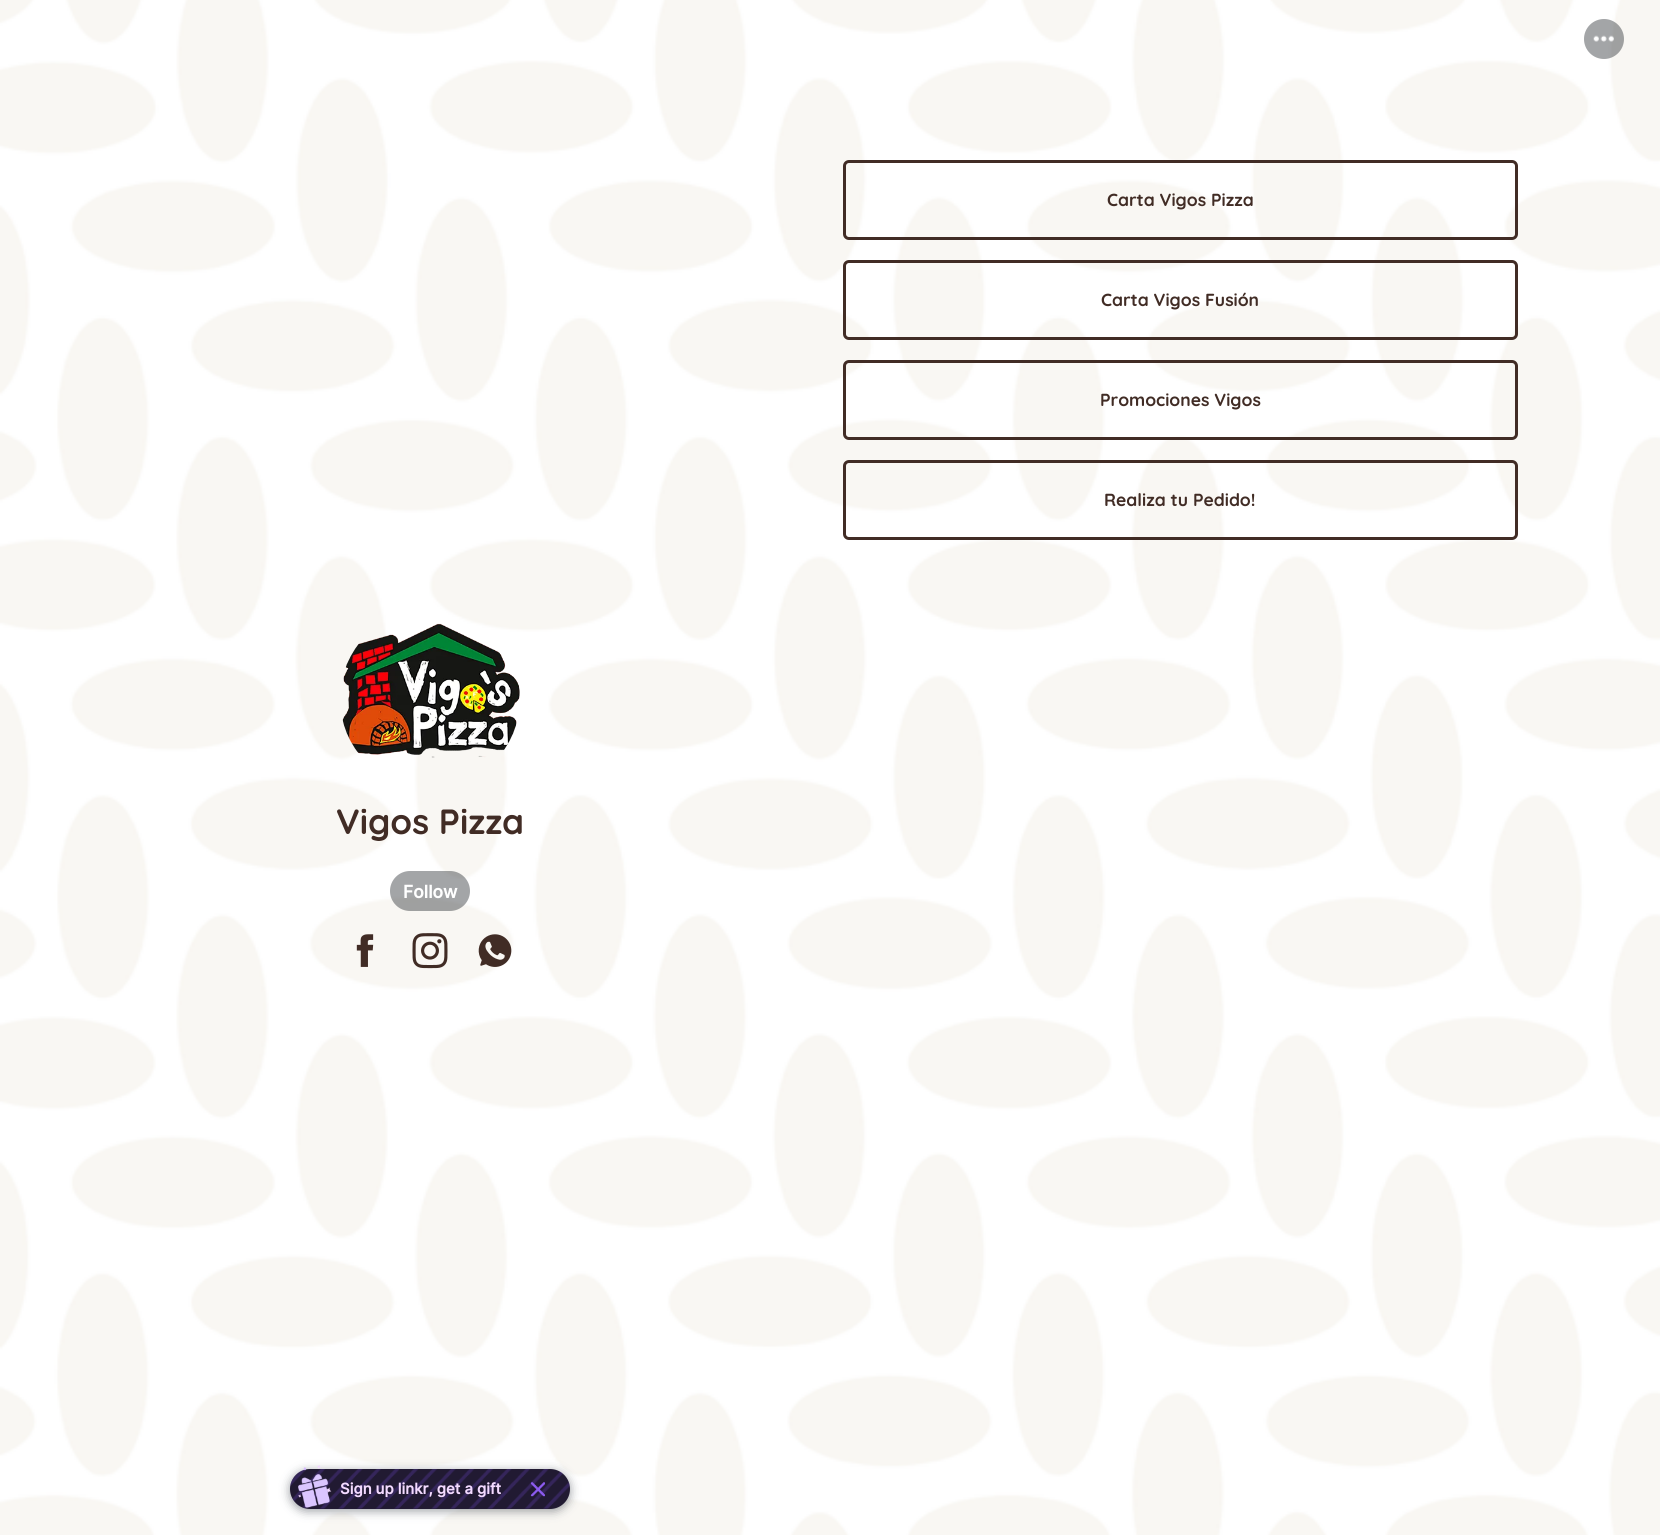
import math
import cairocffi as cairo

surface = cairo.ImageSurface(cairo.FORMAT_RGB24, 1660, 1535)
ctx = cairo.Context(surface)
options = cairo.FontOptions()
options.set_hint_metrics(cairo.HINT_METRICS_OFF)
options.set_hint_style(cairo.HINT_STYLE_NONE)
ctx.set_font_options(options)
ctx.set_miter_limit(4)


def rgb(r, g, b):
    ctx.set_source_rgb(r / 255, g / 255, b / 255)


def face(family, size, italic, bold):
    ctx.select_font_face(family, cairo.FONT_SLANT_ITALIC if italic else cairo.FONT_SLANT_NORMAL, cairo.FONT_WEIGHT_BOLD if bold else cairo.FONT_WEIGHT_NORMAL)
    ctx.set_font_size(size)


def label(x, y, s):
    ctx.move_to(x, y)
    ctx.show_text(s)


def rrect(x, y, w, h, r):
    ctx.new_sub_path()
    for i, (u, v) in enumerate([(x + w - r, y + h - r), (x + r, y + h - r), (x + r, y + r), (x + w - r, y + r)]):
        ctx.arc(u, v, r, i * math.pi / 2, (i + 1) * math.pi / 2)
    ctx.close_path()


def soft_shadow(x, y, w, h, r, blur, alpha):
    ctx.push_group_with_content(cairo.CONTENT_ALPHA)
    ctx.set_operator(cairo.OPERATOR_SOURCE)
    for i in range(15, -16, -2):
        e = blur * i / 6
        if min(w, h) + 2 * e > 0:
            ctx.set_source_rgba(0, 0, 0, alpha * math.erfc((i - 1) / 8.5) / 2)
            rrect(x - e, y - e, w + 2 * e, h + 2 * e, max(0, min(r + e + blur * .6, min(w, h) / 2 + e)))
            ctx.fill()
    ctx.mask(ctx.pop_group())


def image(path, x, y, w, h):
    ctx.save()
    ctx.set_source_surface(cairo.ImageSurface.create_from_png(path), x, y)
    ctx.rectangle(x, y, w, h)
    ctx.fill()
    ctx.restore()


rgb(255, 255, 255)
ctx.paint()
image('image0.png', 0, 0, 1660, 1535)
rrect(844.5, 161.5, 672, 77, 4.5)
rgb(65, 44, 37)
ctx.set_line_width(3)
ctx.stroke()
face('Quicksand', 17.5, 0, 1)
label(1107, 206, 'Carta Vigos Pizza')
rrect(844.5, 261.5, 672, 77, 4.5)
ctx.stroke()
label(1101, 306, 'Carta Vigos Fusión')
rrect(844.5, 361.5, 672, 77, 4.5)
ctx.stroke()
label(1100, 406, 'Promociones Vigos')
rrect(844.5, 461.5, 672, 77, 4.5)
ctx.stroke()
label(1104, 506, 'Realiza tu Pedido!')
ctx.set_source_rgba(0.106, 0.118, 0.145, 0.4)
ctx.new_path()
ctx.arc(1604, 39, 20, 0, 2 * math.pi)
ctx.fill()
image('image1.png', 1593, 35, 21, 7)
image('image2.png', 342, 623, 178, 135)
face('Quicksand', 35, 0, 1)
rgb(65, 44, 37)
label(336, 834, 'Vigos Pizza')
ctx.set_source_rgba(0.106, 0.118, 0.145, 0.4)
rrect(390, 871, 80, 40, 20)
ctx.fill()
face('Inter', 17.5, 0, 1)
rgb(255, 255, 255)
label(403, 898, 'Follow')
image('image3.png', 356, 934, 18, 33)
image('image4.png', 412, 933, 36, 36)
image('image5.png', 478, 934, 34, 33)
rgb(52, 59, 70)
soft_shadow(290, 1471, 280, 40, 20, 5, 0.5)
rgb(33, 26, 50)
rrect(290, 1469, 280, 40, 20)
ctx.fill()
image('image6.png', 290, 1469, 280, 40)
image('image7.png', 298, 1465, 34, 33)
image('image8.png', 298, 1474, 32, 34)
face('Inter', 15, 0, 1)
rgb(243, 218, 255)
label(340, 1494, 'Sign up linkr, get a gift')
image('image9.png', 530, 1482, 15, 15)
surface.write_to_png('render.png')
